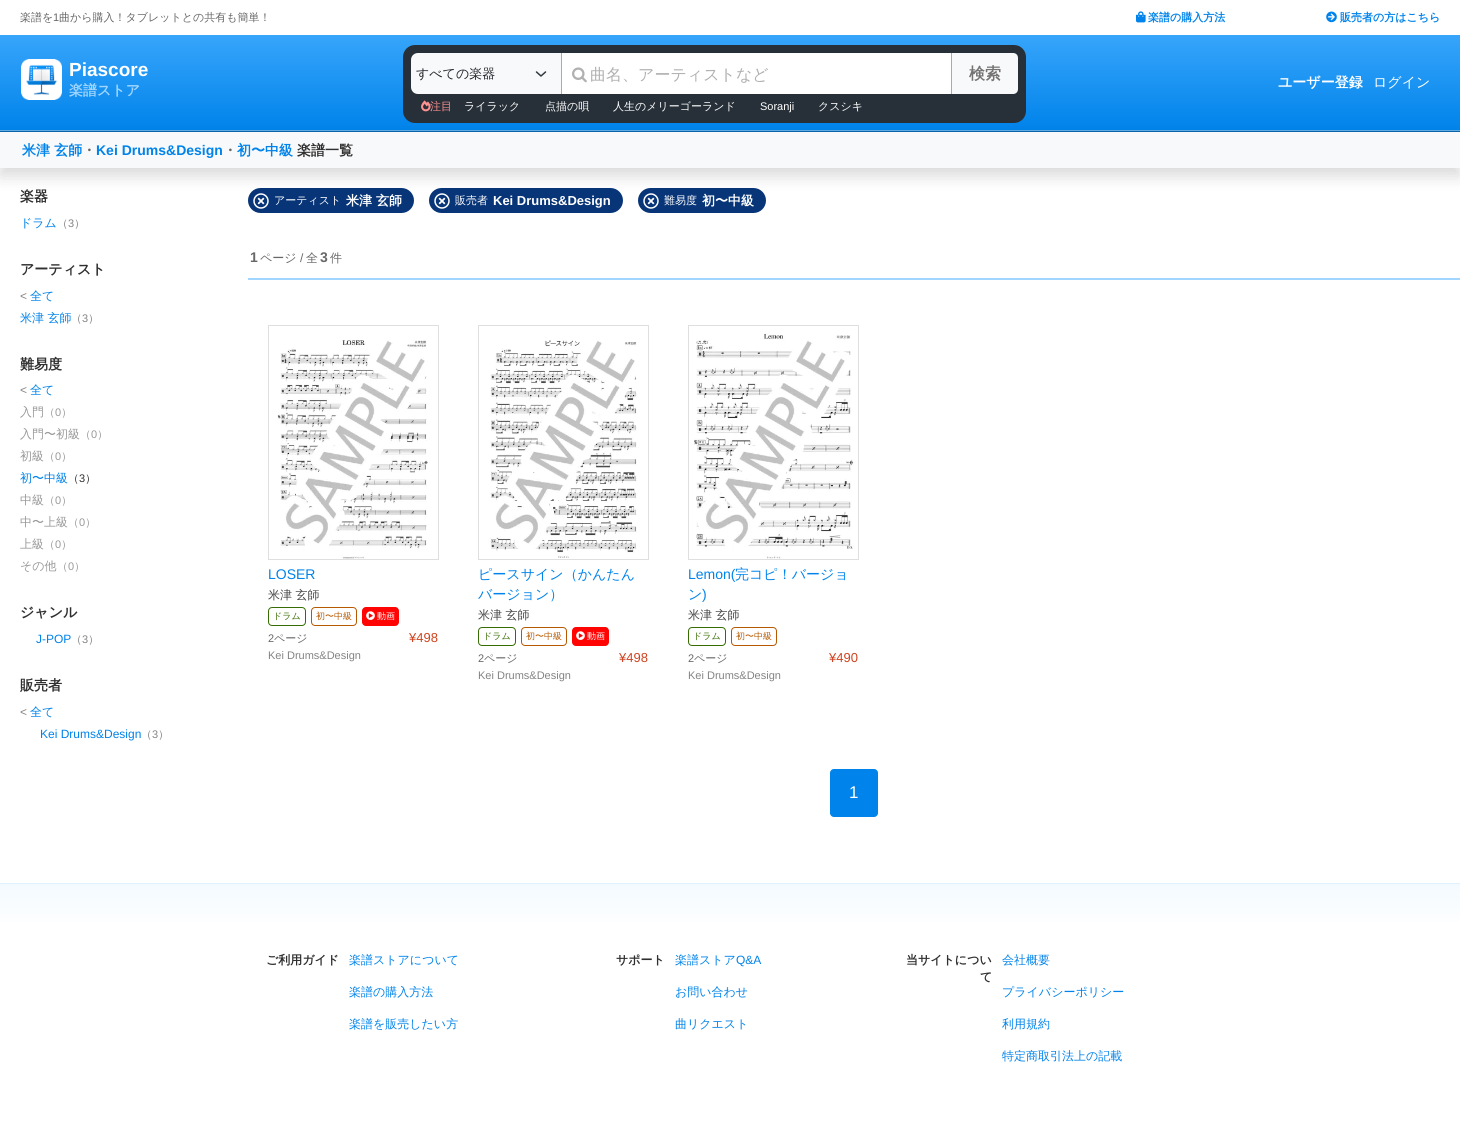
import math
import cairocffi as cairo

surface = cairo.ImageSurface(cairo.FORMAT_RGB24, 1460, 1127)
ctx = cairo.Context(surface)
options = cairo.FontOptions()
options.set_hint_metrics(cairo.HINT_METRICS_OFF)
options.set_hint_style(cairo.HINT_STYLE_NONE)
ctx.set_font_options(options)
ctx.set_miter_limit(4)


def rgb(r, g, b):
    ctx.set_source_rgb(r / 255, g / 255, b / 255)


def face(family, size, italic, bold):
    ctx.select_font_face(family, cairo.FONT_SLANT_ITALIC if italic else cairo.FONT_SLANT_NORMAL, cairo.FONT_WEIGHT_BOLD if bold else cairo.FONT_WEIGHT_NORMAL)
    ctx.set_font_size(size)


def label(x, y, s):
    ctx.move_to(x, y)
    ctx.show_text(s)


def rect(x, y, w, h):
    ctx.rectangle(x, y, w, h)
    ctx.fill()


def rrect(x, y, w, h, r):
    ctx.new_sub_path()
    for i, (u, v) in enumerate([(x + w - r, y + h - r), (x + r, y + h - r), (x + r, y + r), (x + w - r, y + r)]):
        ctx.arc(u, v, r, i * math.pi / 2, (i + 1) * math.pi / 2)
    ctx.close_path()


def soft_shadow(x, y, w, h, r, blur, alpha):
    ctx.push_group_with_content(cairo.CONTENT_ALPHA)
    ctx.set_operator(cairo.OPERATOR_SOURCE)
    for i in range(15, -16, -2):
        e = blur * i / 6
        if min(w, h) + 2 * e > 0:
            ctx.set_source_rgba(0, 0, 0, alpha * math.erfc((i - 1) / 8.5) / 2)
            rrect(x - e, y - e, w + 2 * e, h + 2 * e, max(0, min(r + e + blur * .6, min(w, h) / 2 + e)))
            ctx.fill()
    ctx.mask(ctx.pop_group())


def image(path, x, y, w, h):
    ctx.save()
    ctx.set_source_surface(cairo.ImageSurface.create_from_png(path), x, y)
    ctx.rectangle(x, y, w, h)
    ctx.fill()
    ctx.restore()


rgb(255, 255, 255)
ctx.paint()
face('WenQuanYi Zen Hei Medium', 11, 0, 0)
rgb(103, 103, 103)
label(20, 21, '楽譜を')
face('Liberation Sans', 11, 0, 0)
label(53, 21, '1')
face('WenQuanYi Zen Hei Medium', 11, 0, 0)
label(59, 21, '曲から購入！タブレットとの共有も簡単！')
image('image0.png', 1136, 11, 10, 12)
face('WenQuanYi Zen Hei', 11, 0, 1)
rgb(0, 131, 234)
label(1148, 21, '楽譜の購入方法')
image('image1.png', 1326, 11, 11, 12)
label(1340, 21, '販売者の方はこちら')
gradient = cairo.LinearGradient(730, 35, 730, 130)
gradient.add_color_stop_rgba(0, 0.216, 0.647, 0.984, 1)
gradient.add_color_stop_rgba(1, 0, 0.514, 0.918, 1)
ctx.set_source(gradient)
rect(0, 35, 1460, 95)
image('image2.png', 21, 59, 41, 41)
face('Liberation Sans', 19, 0, 1)
rgb(255, 255, 255)
label(69, 76, 'Piascore')
face('WenQuanYi Zen Hei', 14, 0, 1)
rgb(159, 213, 255)
label(69, 95, '楽譜ストア')
rgb(39, 48, 56)
rrect(403, 45, 623, 78, 12)
ctx.fill()
rgb(248, 249, 250)
ctx.new_path()
ctx.move_to(418, 53)
ctx.line_to(561, 53)
ctx.line_to(561, 94)
ctx.line_to(418, 94)
ctx.curve_to(414, 94, 411, 91, 411, 87)
ctx.line_to(411, 60)
ctx.curve_to(411, 56, 414, 53, 418, 53)
ctx.close_path()
ctx.fill()
ctx.new_path()
ctx.move_to(536.5, 72)
ctx.line_to(541, 76)
ctx.line_to(545.5, 72)
rgb(52, 58, 64)
ctx.set_line_width(1.5)
ctx.set_line_cap(cairo.LINE_CAP_ROUND)
ctx.set_line_join(cairo.LINE_JOIN_ROUND)
ctx.stroke()
face('WenQuanYi Zen Hei Medium', 13, 0, 0)
rgb(33, 37, 41)
label(416, 78, 'すべての楽器')
rgb(255, 255, 255)
rect(562, 53, 389, 41)
rgb(170, 170, 170)
rect(561, 53, 1, 41)
image('image3.png', 572, 67, 15, 16)
face('WenQuanYi Zen Hei Medium', 16, 0, 0)
rgb(176, 176, 176)
label(590, 80, '曲名、アーティストなど')
rgb(248, 249, 250)
ctx.new_path()
ctx.move_to(952, 53)
ctx.line_to(1013, 53)
ctx.curve_to(1016, 53, 1018, 55, 1018, 58)
ctx.line_to(1018, 89)
ctx.curve_to(1018, 92, 1016, 94, 1013, 94)
ctx.line_to(952, 94)
ctx.close_path()
ctx.fill()
rgb(170, 170, 170)
rect(951, 53, 1, 41)
face('WenQuanYi Zen Hei', 16, 0, 1)
rgb(116, 114, 114)
label(969, 79, '検索')
image('image4.png', 421, 100, 10, 12)
face('WenQuanYi Zen Hei Medium', 11, 0, 0)
rgb(255, 145, 145)
label(430, 110, '注目')
rgb(255, 255, 255)
label(464, 110, 'ライラック')
label(545, 110, '点描の唄')
label(613, 110, '人生のメリーゴーランド')
face('Liberation Sans', 11, 0, 0)
label(760, 110, 'Soranji')
face('WenQuanYi Zen Hei Medium', 11, 0, 0)
label(818, 110, 'クスシキ')
face('WenQuanYi Zen Hei', 14, 0, 1)
label(1278, 87, 'ユーザー登録')
face('WenQuanYi Zen Hei Medium', 14, 0, 0)
label(1373, 87, 'ログイン')
rgb(98, 173, 231)
rect(0, 130, 1460, 1)
rgb(12, 102, 173)
rect(0, 131, 1460, 1)
rgb(8, 53, 120)
rrect(248, 188, 166, 25, 12.5)
ctx.fill()
image('image5.png', 253, 193, 16, 16)
rrect(429, 188, 194, 25, 12.5)
ctx.fill()
image('image5.png', 434, 193, 16, 16)
rrect(638, 188, 128, 25, 12.5)
ctx.fill()
image('image5.png', 643, 193, 16, 16)
rgb(0, 0, 0)
soft_shadow(0, 140, 1460, 36, 0, 8, 0.15)
rgb(248, 249, 250)
rect(0, 132, 1460, 36)
face('WenQuanYi Zen Hei', 14, 0, 1)
rgb(0, 131, 234)
label(22, 155, '米津 玄師')
rgb(103, 103, 103)
label(82, 155, '・')
face('Liberation Sans', 14, 0, 1)
rgb(0, 131, 234)
label(96, 155, 'Kei Drums&Design')
face('WenQuanYi Zen Hei', 14, 0, 1)
rgb(103, 103, 103)
label(223, 155, '・')
rgb(0, 131, 234)
label(237, 155, '初〜中級')
rgb(47, 47, 47)
label(297, 155, '楽譜一覧')
label(20, 201, '楽器')
face('WenQuanYi Zen Hei Medium', 12, 0, 0)
rgb(0, 131, 234)
label(20, 227, 'ドラム')
face('WenQuanYi Zen Hei Medium', 11, 0, 0)
rgb(131, 131, 131)
label(57, 227, '（')
face('Liberation Sans', 11, 0, 0)
label(68, 227, '3')
face('WenQuanYi Zen Hei Medium', 11, 0, 0)
label(74, 227, '）')
face('WenQuanYi Zen Hei', 14, 0, 1)
rgb(47, 47, 47)
label(20, 274, 'アーティスト')
face('Liberation Sans', 12, 0, 0)
rgb(131, 131, 131)
label(20, 300, '<')
face('WenQuanYi Zen Hei Medium', 12, 0, 0)
rgb(0, 131, 234)
label(30, 300, '全て')
label(20, 322, '米津 玄師')
face('WenQuanYi Zen Hei Medium', 11, 0, 0)
rgb(131, 131, 131)
label(71, 322, '（')
face('Liberation Sans', 11, 0, 0)
label(82, 322, '3')
face('WenQuanYi Zen Hei Medium', 11, 0, 0)
label(88, 322, '）')
face('WenQuanYi Zen Hei', 14, 0, 1)
rgb(47, 47, 47)
label(20, 369, '難易度')
face('Liberation Sans', 12, 0, 0)
rgb(131, 131, 131)
label(20, 394, '<')
face('WenQuanYi Zen Hei Medium', 12, 0, 0)
rgb(0, 131, 234)
label(30, 394, '全て')
rgb(153, 153, 153)
label(20, 416, '入門')
face('WenQuanYi Zen Hei Medium', 11, 0, 0)
label(44, 416, '（')
face('Liberation Sans', 11, 0, 0)
label(55, 416, '0')
face('WenQuanYi Zen Hei Medium', 11, 0, 0)
label(61, 416, '）')
face('WenQuanYi Zen Hei Medium', 12, 0, 0)
label(20, 438, '入門〜初級')
face('WenQuanYi Zen Hei Medium', 11, 0, 0)
label(80, 438, '（')
face('Liberation Sans', 11, 0, 0)
label(91, 438, '0')
face('WenQuanYi Zen Hei Medium', 11, 0, 0)
label(97, 438, '）')
face('WenQuanYi Zen Hei Medium', 12, 0, 0)
label(20, 460, '初級')
face('WenQuanYi Zen Hei Medium', 11, 0, 0)
label(44, 460, '（')
face('Liberation Sans', 11, 0, 0)
label(55, 460, '0')
face('WenQuanYi Zen Hei Medium', 11, 0, 0)
label(61, 460, '）')
face('WenQuanYi Zen Hei Medium', 12, 0, 0)
rgb(0, 131, 234)
label(20, 482, '初〜中級')
face('WenQuanYi Zen Hei Medium', 11, 0, 0)
rgb(47, 47, 47)
label(68, 482, '（')
face('Liberation Sans', 11, 0, 0)
label(79, 482, '3')
face('WenQuanYi Zen Hei Medium', 11, 0, 0)
label(85, 482, '）')
face('WenQuanYi Zen Hei Medium', 12, 0, 0)
rgb(153, 153, 153)
label(20, 504, '中級')
face('WenQuanYi Zen Hei Medium', 11, 0, 0)
label(44, 504, '（')
face('Liberation Sans', 11, 0, 0)
label(55, 504, '0')
face('WenQuanYi Zen Hei Medium', 11, 0, 0)
label(61, 504, '）')
face('WenQuanYi Zen Hei Medium', 12, 0, 0)
label(20, 526, '中〜上級')
face('WenQuanYi Zen Hei Medium', 11, 0, 0)
label(68, 526, '（')
face('Liberation Sans', 11, 0, 0)
label(79, 526, '0')
face('WenQuanYi Zen Hei Medium', 11, 0, 0)
label(85, 526, '）')
face('WenQuanYi Zen Hei Medium', 12, 0, 0)
label(20, 548, '上級')
face('WenQuanYi Zen Hei Medium', 11, 0, 0)
label(44, 548, '（')
face('Liberation Sans', 11, 0, 0)
label(55, 548, '0')
face('WenQuanYi Zen Hei Medium', 11, 0, 0)
label(61, 548, '）')
face('WenQuanYi Zen Hei Medium', 12, 0, 0)
label(20, 570, 'その他')
face('WenQuanYi Zen Hei Medium', 11, 0, 0)
label(57, 570, '（')
face('Liberation Sans', 11, 0, 0)
label(68, 570, '0')
face('WenQuanYi Zen Hei Medium', 11, 0, 0)
label(74, 570, '）')
face('WenQuanYi Zen Hei', 14, 0, 1)
rgb(47, 47, 47)
label(20, 617, 'ジャンル')
face('Liberation Sans', 12, 0, 0)
rgb(0, 131, 234)
label(36, 643, 'J-POP')
face('WenQuanYi Zen Hei Medium', 11, 0, 0)
rgb(131, 131, 131)
label(71, 643, '（')
face('Liberation Sans', 11, 0, 0)
label(82, 643, '3')
face('WenQuanYi Zen Hei Medium', 11, 0, 0)
label(88, 643, '）')
face('WenQuanYi Zen Hei', 14, 0, 1)
rgb(47, 47, 47)
label(20, 690, '販売者')
face('Liberation Sans', 12, 0, 0)
rgb(131, 131, 131)
label(20, 716, '<')
face('WenQuanYi Zen Hei Medium', 12, 0, 0)
rgb(0, 131, 234)
label(30, 716, '全て')
face('Liberation Sans', 12, 0, 0)
label(40, 738, 'Kei Drums&Design')
face('WenQuanYi Zen Hei Medium', 11, 0, 0)
rgb(131, 131, 131)
label(141, 738, '（')
face('Liberation Sans', 11, 0, 0)
label(152, 738, '3')
face('WenQuanYi Zen Hei Medium', 11, 0, 0)
label(158, 738, '）')
rgb(255, 255, 255)
label(274, 204, 'アーティスト')
face('WenQuanYi Zen Hei', 13, 0, 1)
label(346, 205, '米津 玄師')
face('WenQuanYi Zen Hei Medium', 11, 0, 0)
label(455, 204, '販売者')
face('Liberation Sans', 13, 0, 1)
label(493, 205, 'Kei Drums&Design')
face('WenQuanYi Zen Hei Medium', 11, 0, 0)
label(664, 204, '難易度')
face('WenQuanYi Zen Hei', 13, 0, 1)
label(702, 205, '初〜中級')
face('Liberation Sans', 14, 0, 1)
rgb(103, 103, 103)
label(250, 262, '1')
face('WenQuanYi Zen Hei Medium', 12, 0, 0)
label(260, 262, 'ページ')
face('Liberation Sans', 12, 0, 0)
label(300, 262, '/')
face('WenQuanYi Zen Hei Medium', 12, 0, 0)
label(306, 262, '全')
face('Liberation Sans', 14, 0, 1)
label(320, 262, '3')
face('WenQuanYi Zen Hei Medium', 12, 0, 0)
label(330, 262, '件')
rgb(160, 214, 255)
rect(248, 278, 1212, 2)
ctx.rectangle(268.5, 325.5, 170, 234)
rgb(223, 223, 223)
ctx.set_line_width(1)
ctx.set_line_cap(cairo.LINE_CAP_BUTT)
ctx.set_line_join(cairo.LINE_JOIN_MITER)
ctx.stroke()
image('image6.png', 277, 340, 151, 219)
face('Liberation Sans', 14, 0, 0)
rgb(0, 131, 234)
label(268, 579, 'LOSER')
face('WenQuanYi Zen Hei Medium', 12, 0, 0)
rgb(68, 68, 68)
label(268, 599, '米津 玄師')
rrect(268.5, 607.5, 37, 18, 3.5)
rgb(54, 109, 2)
ctx.stroke()
face('WenQuanYi Zen Hei Medium', 9, 0, 0)
label(273, 619, 'ドラム')
rrect(311.5, 607.5, 45, 18, 3.5)
rgb(183, 89, 1)
ctx.stroke()
label(316, 619, '初〜中級')
rgb(255, 4, 2)
rrect(362, 607, 37, 19, 4)
ctx.fill()
image('image7.png', 366, 611, 9, 9)
rgb(255, 255, 255)
label(377, 619, '動画')
face('Liberation Sans', 11, 0, 0)
rgb(103, 103, 103)
label(268, 642, '2')
face('WenQuanYi Zen Hei Medium', 11, 0, 0)
label(274, 642, 'ページ')
face('Liberation Sans', 13, 0, 0)
rgb(207, 67, 30)
label(409, 642, '¥498')
face('Liberation Sans', 11, 0, 0)
rgb(131, 131, 131)
label(268, 659, 'Kei Drums&Design')
ctx.rectangle(478.5, 325.5, 170, 234)
rgb(223, 223, 223)
ctx.stroke()
image('image8.png', 490, 340, 147, 218)
face('WenQuanYi Zen Hei Medium', 14, 0, 0)
rgb(0, 131, 234)
label(478, 579, 'ピースサイン（かんたん')
label(478, 599, 'バージョン）')
face('WenQuanYi Zen Hei Medium', 12, 0, 0)
rgb(68, 68, 68)
label(478, 619, '米津 玄師')
rrect(478.5, 627.5, 37, 18, 3.5)
rgb(54, 109, 2)
ctx.stroke()
face('WenQuanYi Zen Hei Medium', 9, 0, 0)
label(483, 639, 'ドラム')
rrect(521.5, 627.5, 45, 18, 3.5)
rgb(183, 89, 1)
ctx.stroke()
label(526, 639, '初〜中級')
rgb(255, 4, 2)
rrect(572, 627, 37, 19, 4)
ctx.fill()
image('image7.png', 576, 631, 9, 9)
rgb(255, 255, 255)
label(587, 639, '動画')
face('Liberation Sans', 11, 0, 0)
rgb(103, 103, 103)
label(478, 662, '2')
face('WenQuanYi Zen Hei Medium', 11, 0, 0)
label(484, 662, 'ページ')
face('Liberation Sans', 13, 0, 0)
rgb(207, 67, 30)
label(619, 662, '¥498')
face('Liberation Sans', 11, 0, 0)
rgb(131, 131, 131)
label(478, 679, 'Kei Drums&Design')
ctx.rectangle(688.5, 325.5, 170, 234)
rgb(223, 223, 223)
ctx.stroke()
image('image9.png', 694, 333, 160, 226)
face('Liberation Sans', 14, 0, 0)
rgb(0, 131, 234)
label(688, 579, 'Lemon(')
face('WenQuanYi Zen Hei Medium', 14, 0, 0)
label(735, 579, '完コピ！バージョ')
label(688, 599, 'ン')
face('Liberation Sans', 14, 0, 0)
label(702, 599, ')')
face('WenQuanYi Zen Hei Medium', 12, 0, 0)
rgb(68, 68, 68)
label(688, 619, '米津 玄師')
rrect(688.5, 627.5, 37, 18, 3.5)
rgb(54, 109, 2)
ctx.stroke()
face('WenQuanYi Zen Hei Medium', 9, 0, 0)
label(693, 639, 'ドラム')
rrect(731.5, 627.5, 45, 18, 3.5)
rgb(183, 89, 1)
ctx.stroke()
label(736, 639, '初〜中級')
face('Liberation Sans', 11, 0, 0)
rgb(103, 103, 103)
label(688, 662, '2')
face('WenQuanYi Zen Hei Medium', 11, 0, 0)
label(694, 662, 'ページ')
face('Liberation Sans', 13, 0, 0)
rgb(207, 67, 30)
label(829, 662, '¥490')
face('Liberation Sans', 11, 0, 0)
rgb(131, 131, 131)
label(688, 679, 'Kei Drums&Design')
rgb(0, 131, 234)
rrect(830.5, 769.5, 47, 47, 3.5)
ctx.fill_preserve()
ctx.stroke()
face('Liberation Sans', 17, 0, 0)
rgb(255, 255, 255)
label(849, 798, '1')
gradient = cairo.LinearGradient(730, 884, 730, 932)
gradient.add_color_stop_rgba(0, 0.953, 0.98, 1, 1)
gradient.add_color_stop_rgba(1, 1, 1, 1, 1)
ctx.set_source(gradient)
rect(0, 884, 1460, 38)
rgb(223, 241, 255)
rect(0, 883, 1460, 1)
face('WenQuanYi Zen Hei', 12, 0, 1)
rgb(47, 47, 47)
label(266, 964, 'ご利用ガイド')
face('WenQuanYi Zen Hei Medium', 12, 0, 0)
rgb(0, 131, 234)
label(349, 964, '楽譜ストアについて')
label(349, 996, '楽譜の購入方法')
label(349, 1028, '楽譜を販売したい方')
face('WenQuanYi Zen Hei', 12, 0, 1)
rgb(47, 47, 47)
label(616, 964, 'サポート')
face('WenQuanYi Zen Hei Medium', 12, 0, 0)
rgb(0, 131, 234)
label(675, 964, '楽譜ストア')
face('Liberation Sans', 12, 0, 0)
label(736, 964, 'Q&A')
face('WenQuanYi Zen Hei Medium', 12, 0, 0)
label(675, 996, 'お問い合わせ')
label(675, 1028, '曲リクエスト')
face('WenQuanYi Zen Hei', 12, 0, 1)
rgb(47, 47, 47)
label(906, 964, '当サイトについ')
label(980, 981, 'て')
face('WenQuanYi Zen Hei Medium', 12, 0, 0)
rgb(0, 131, 234)
label(1002, 964, '会社概要')
label(1002, 996, 'プライバシーポリシー')
label(1002, 1028, '利用規約')
label(1002, 1060, '特定商取引法上の記載')
surface.write_to_png('render.png')
